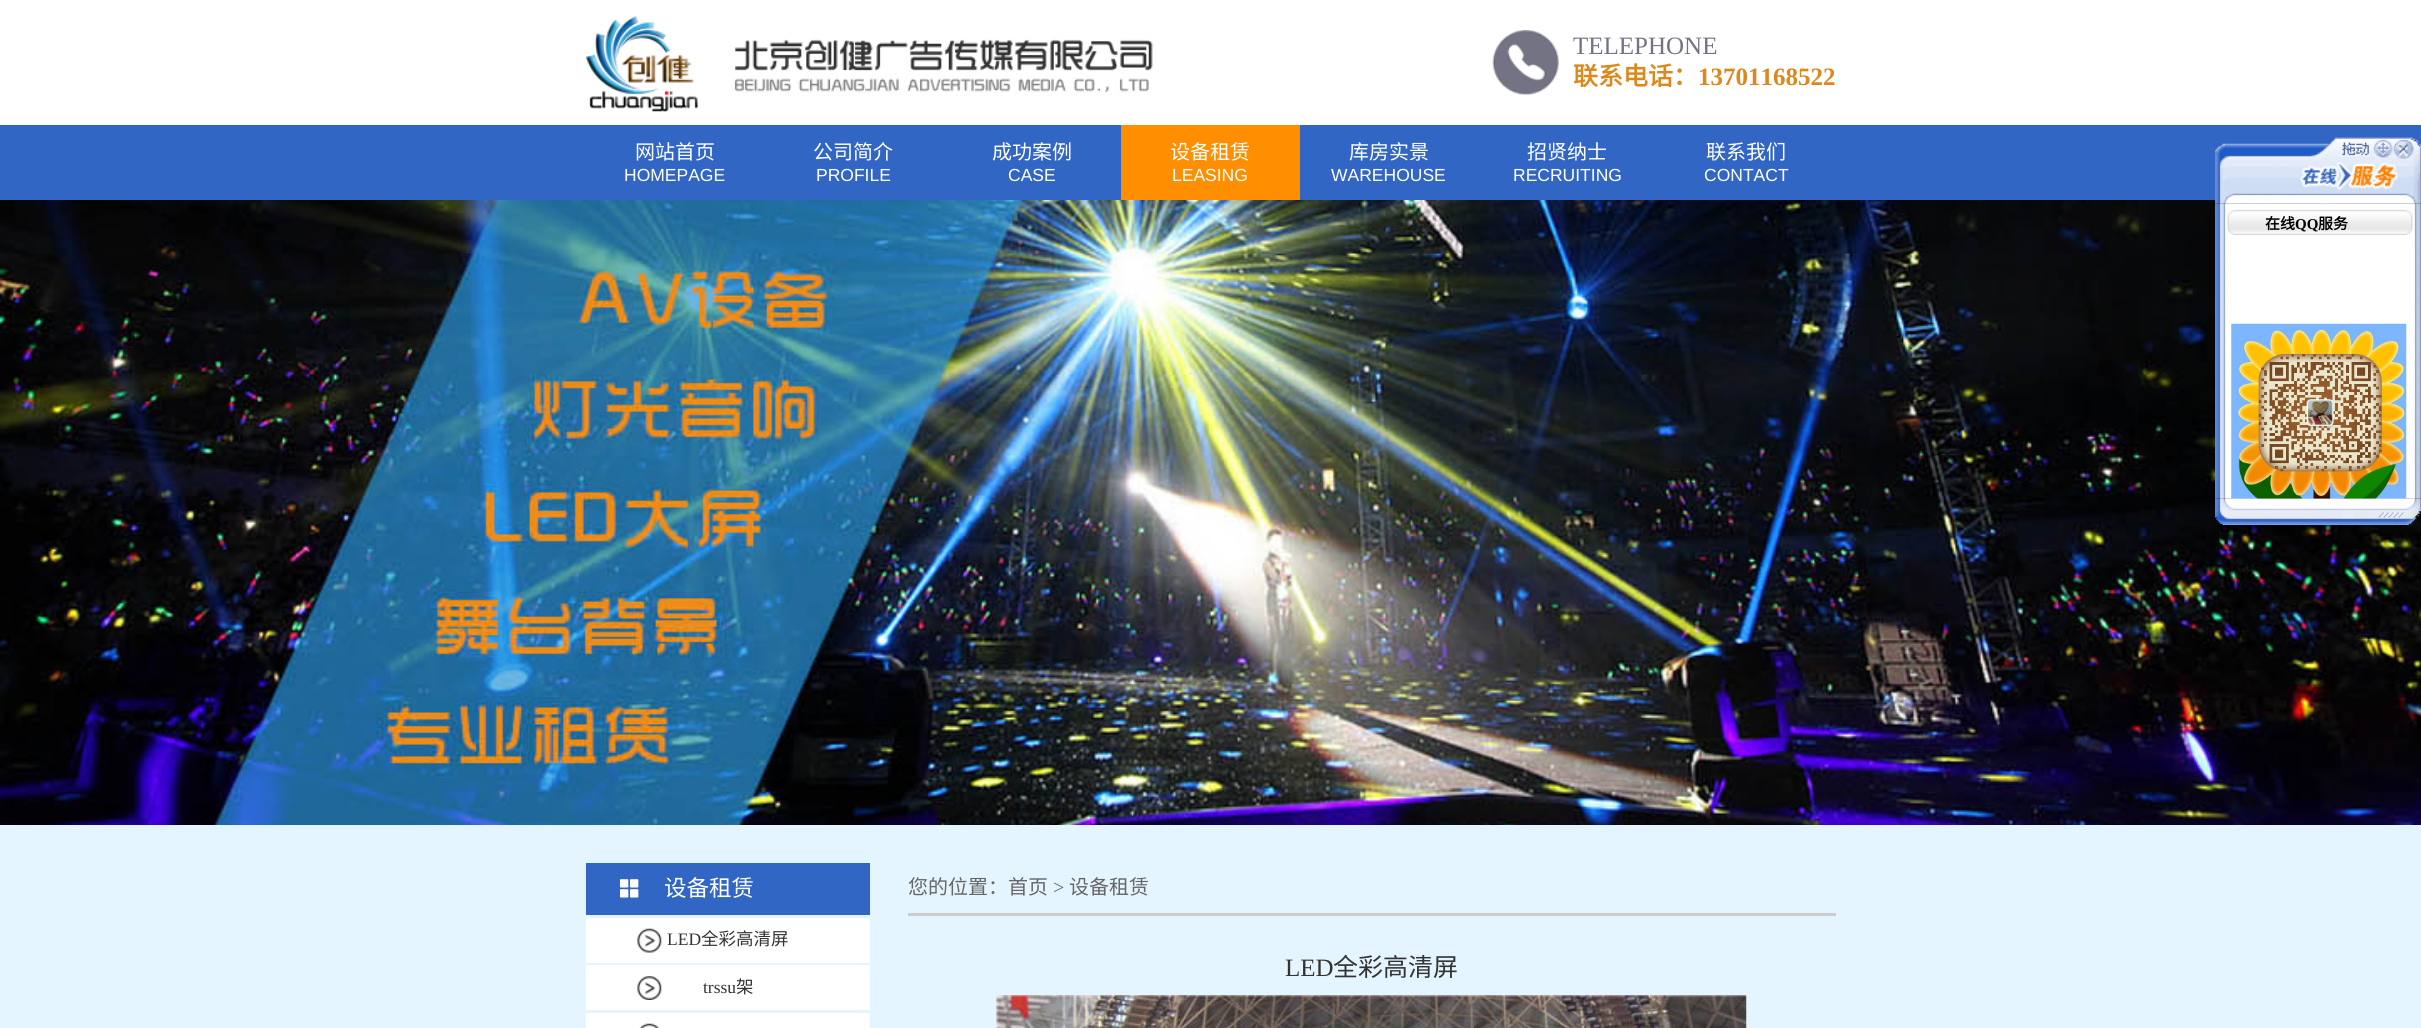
import math
import cairocffi as cairo

surface = cairo.ImageSurface(cairo.FORMAT_RGB24, 2421, 1028)
ctx = cairo.Context(surface)
options = cairo.FontOptions()
options.set_hint_metrics(cairo.HINT_METRICS_OFF)
options.set_hint_style(cairo.HINT_STYLE_NONE)
ctx.set_font_options(options)
ctx.set_miter_limit(4)


def rgb(r, g, b):
    ctx.set_source_rgb(r / 255, g / 255, b / 255)


def face(family, size, italic, bold):
    ctx.select_font_face(family, cairo.FONT_SLANT_ITALIC if italic else cairo.FONT_SLANT_NORMAL, cairo.FONT_WEIGHT_BOLD if bold else cairo.FONT_WEIGHT_NORMAL)
    ctx.set_font_size(size)


def label(x, y, s):
    ctx.move_to(x, y)
    ctx.show_text(s)


def rect(x, y, w, h):
    ctx.rectangle(x, y, w, h)
    ctx.fill()


def image(path, x, y, w, h):
    ctx.save()
    ctx.set_source_surface(cairo.ImageSurface.create_from_png(path), x, y)
    ctx.rectangle(x, y, w, h)
    ctx.fill()
    ctx.restore()


rgb(255, 255, 255)
ctx.paint()
image('image0.png', 586, 16, 567, 96)
image('image1.png', 1492, 30, 67, 65)
face('Liberation Serif', 25, 0, 0)
rgb(115, 115, 131)
label(1573, 54, 'TELEPHONE')
face('Noto Sans CJK SC', 25, 0, 1)
rgb(220, 136, 28)
label(1573, 85, '联系电话：')
face('Liberation Serif', 25, 0, 1)
label(1698, 85, '13701168522')
rgb(50, 102, 196)
rect(0, 125, 2421, 75)
face('Noto Sans CJK SC', 20, 0, 0)
rgb(255, 255, 255)
label(635, 159, '网站首页')
face('Liberation Sans', 17.5, 0, 0)
label(624, 181, 'HOMEPAGE')
face('Noto Sans CJK SC', 20, 0, 0)
label(813, 159, '公司简介')
face('Liberation Sans', 17.5, 0, 0)
label(816, 181, 'PROFILE')
face('Noto Sans CJK SC', 20, 0, 0)
label(992, 159, '成功案例')
face('Liberation Sans', 17.5, 0, 0)
label(1008, 181, 'CASE')
rgb(255, 143, 0)
rect(1121, 125, 179, 75)
face('Noto Sans CJK SC', 20, 0, 0)
rgb(255, 255, 255)
label(1170, 159, '设备租赁')
face('Liberation Sans', 17.5, 0, 0)
label(1172, 181, 'LEASING')
face('Noto Sans CJK SC', 20, 0, 0)
label(1349, 159, '库房实景')
face('Liberation Sans', 17.5, 0, 0)
label(1331, 181, 'WAREHOUSE')
face('Noto Sans CJK SC', 20, 0, 0)
label(1527, 159, '招贤纳士')
face('Liberation Sans', 17.5, 0, 0)
label(1513, 181, 'RECRUITING')
face('Noto Sans CJK SC', 20, 0, 0)
label(1706, 159, '联系我们')
face('Liberation Sans', 17.5, 0, 0)
label(1704, 181, 'CONTACT')
image('image2.png', 0, 200, 2421, 625)
image('image4.png', 2215, 203, 206, 42)
image('image3.png', 2215, 137, 206, 67)
face('Noto Sans CJK SC', 15, 0, 1)
rgb(0, 0, 0)
label(2265, 229, '在线')
face('Liberation Serif', 15, 0, 1)
label(2295, 229, 'QQ')
face('Noto Sans CJK SC', 15, 0, 1)
label(2318, 229, '服务')
image('image5.png', 2215, 245, 206, 254)
image('image6.png', 2231, 323, 176, 176)
image('image7.png', 2215, 498, 206, 27)
rgb(229, 245, 255)
rect(0, 825, 2421, 203)
rgb(50, 102, 196)
rect(586, 863, 284, 52)
image('image8.png', 620, 879, 19, 19)
face('Noto Sans CJK SC', 22.5, 0, 0)
rgb(255, 255, 255)
label(664, 896, '设备租赁')
rect(586, 918, 284, 45)
image('image9.png', 637, 928, 25, 25)
face('Liberation Serif', 17.5, 0, 0)
rgb(51, 51, 51)
label(667, 945, 'LED')
face('Noto Sans CJK SC', 17.5, 0, 0)
label(701, 945, '全彩高清屏')
rgb(255, 255, 255)
rect(586, 965, 284, 45)
image('image10.png', 637, 976, 25, 24)
face('Liberation Serif', 17.5, 0, 0)
rgb(51, 51, 51)
label(703, 993, 'trssu')
face('Noto Sans CJK SC', 17.5, 0, 0)
label(736, 993, '架')
rgb(255, 255, 255)
rect(586, 1013, 284, 15)
image('image11.png', 639, 1023, 20, 5)
rgb(204, 204, 204)
rect(908, 913, 928, 3)
face('Noto Sans CJK SC', 20, 0, 0)
rgb(102, 102, 102)
label(908, 894, '您的位置：首页')
face('Liberation Serif', 20, 0, 0)
label(1053, 894, '>')
face('Noto Sans CJK SC', 20, 0, 0)
label(1069, 894, '设备租赁')
face('Liberation Serif', 25, 0, 0)
rgb(51, 51, 51)
label(1285, 976, 'LED')
face('Noto Sans CJK SC', 25, 0, 0)
label(1333, 976, '全彩高清屏')
image('image12.png', 996, 995, 751, 33)
surface.write_to_png('render.png')
